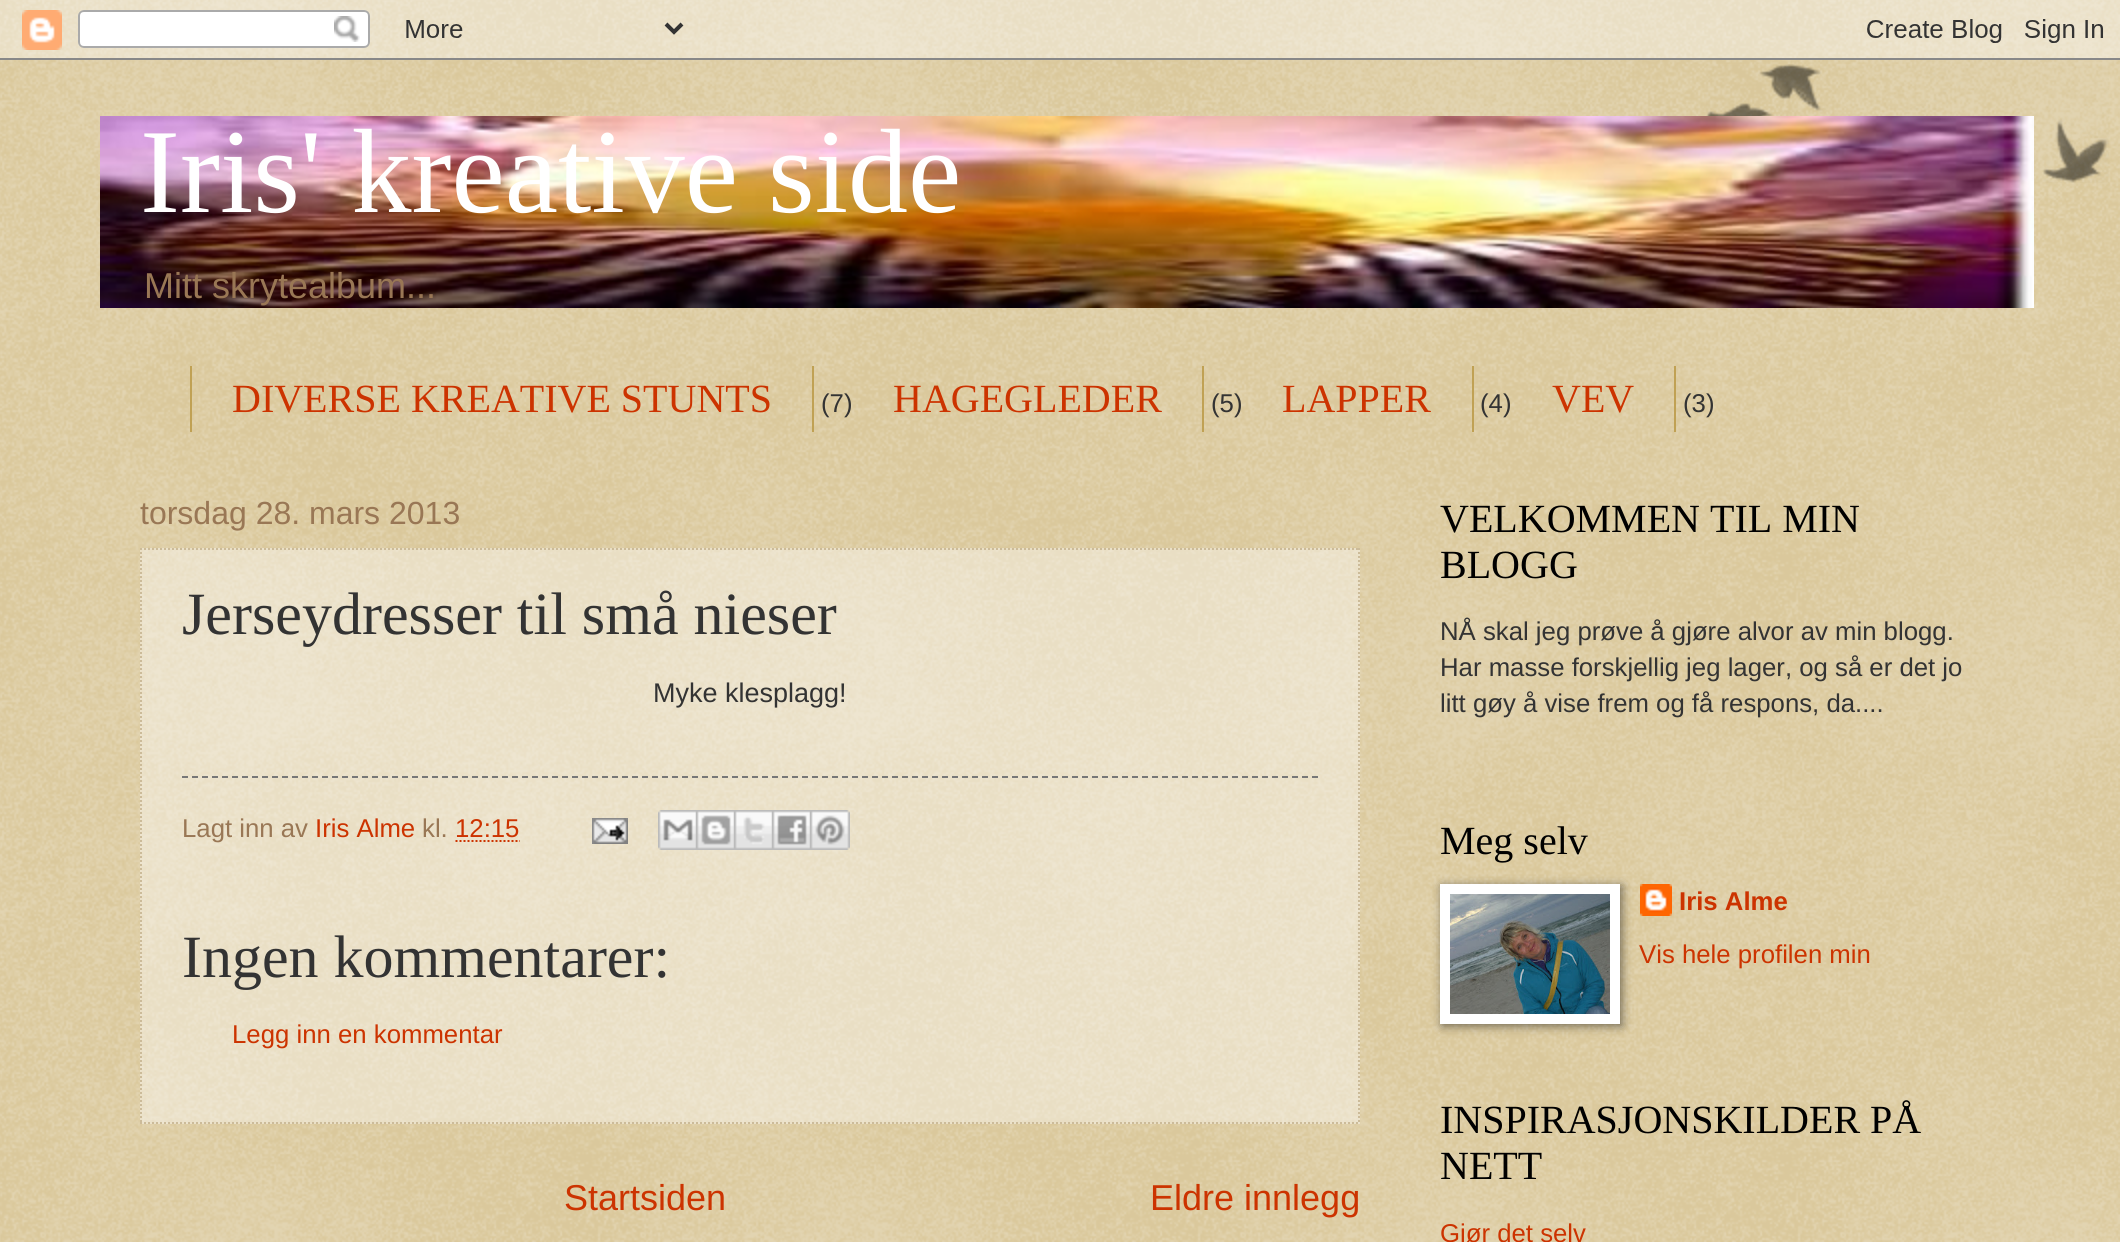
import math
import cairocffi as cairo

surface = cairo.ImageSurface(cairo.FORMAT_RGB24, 2120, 1242)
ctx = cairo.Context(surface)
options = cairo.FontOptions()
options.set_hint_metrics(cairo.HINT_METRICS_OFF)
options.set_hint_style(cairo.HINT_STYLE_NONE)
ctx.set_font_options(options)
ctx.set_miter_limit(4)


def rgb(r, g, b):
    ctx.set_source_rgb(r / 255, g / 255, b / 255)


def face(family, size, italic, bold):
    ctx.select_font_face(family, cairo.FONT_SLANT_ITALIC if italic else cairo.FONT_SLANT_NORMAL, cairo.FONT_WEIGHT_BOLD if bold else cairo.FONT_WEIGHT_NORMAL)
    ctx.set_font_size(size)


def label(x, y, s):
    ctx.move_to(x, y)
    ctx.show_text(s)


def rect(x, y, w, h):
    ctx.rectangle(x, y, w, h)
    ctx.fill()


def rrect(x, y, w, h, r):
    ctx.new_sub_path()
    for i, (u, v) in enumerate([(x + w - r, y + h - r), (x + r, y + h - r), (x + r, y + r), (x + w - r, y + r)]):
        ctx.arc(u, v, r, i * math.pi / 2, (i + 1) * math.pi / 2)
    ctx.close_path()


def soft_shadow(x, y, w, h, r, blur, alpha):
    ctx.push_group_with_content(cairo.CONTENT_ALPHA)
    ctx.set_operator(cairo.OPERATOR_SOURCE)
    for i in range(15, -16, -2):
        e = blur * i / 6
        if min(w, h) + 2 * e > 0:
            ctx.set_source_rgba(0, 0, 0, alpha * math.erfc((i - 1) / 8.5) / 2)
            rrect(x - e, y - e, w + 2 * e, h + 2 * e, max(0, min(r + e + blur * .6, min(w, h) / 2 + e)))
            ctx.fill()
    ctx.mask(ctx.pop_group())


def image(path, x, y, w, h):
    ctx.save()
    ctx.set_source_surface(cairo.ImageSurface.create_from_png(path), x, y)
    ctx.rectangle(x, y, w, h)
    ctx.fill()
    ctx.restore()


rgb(192, 161, 84)
ctx.paint()
image('image0.png', 0, 0, 2120, 1242)
image('image1.png', 0, 0, 2120, 60)
image('image2.png', 1706, 64, 403, 119)
image('image3.png', 100, 116, 1934, 192)
face('Liberation Serif', 120, 0, 0)
rgb(255, 255, 255)
label(140, 212, 'Iris\' kreative side')
face('Liberation Sans', 36, 0, 0)
rgb(153, 119, 85)
label(144, 298, 'Mitt skrytealbum...')
rgb(192, 161, 84)
rect(812, 366, 2, 66)
rect(190, 366, 2, 66)
face('Liberation Serif', 40, 0, 0)
rgb(204, 51, 0)
label(232, 412, 'DIVERSE KREATIVE STUNTS')
face('Liberation Sans', 25.75, 0, 0)
rgb(51, 51, 51)
label(821, 412, '(7)')
rgb(192, 161, 84)
rect(1202, 366, 2, 66)
face('Liberation Serif', 40, 0, 0)
rgb(204, 51, 0)
label(893, 412, 'HAGEGLEDER')
face('Liberation Sans', 25.75, 0, 0)
rgb(51, 51, 51)
label(1211, 412, '(5)')
rgb(192, 161, 84)
rect(1472, 366, 2, 66)
face('Liberation Serif', 40, 0, 0)
rgb(204, 51, 0)
label(1282, 412, 'LAPPER')
face('Liberation Sans', 25.75, 0, 0)
rgb(51, 51, 51)
label(1480, 412, '(4)')
rgb(192, 161, 84)
rect(1674, 366, 2, 66)
face('Liberation Serif', 40, 0, 0)
rgb(204, 51, 0)
label(1552, 412, 'VEV')
face('Liberation Sans', 25.75, 0, 0)
rgb(51, 51, 51)
label(1683, 412, '(3)')
face('Liberation Sans', 32, 0, 0)
rgb(153, 119, 85)
label(140, 524, 'torsdag 28. mars 2013')
ctx.set_source_rgba(1, 1, 1, 0.4)
rect(140, 548, 1220, 576)
ctx.new_path()
ctx.move_to(140, 549)
ctx.line_to(1360, 549)
rgb(204, 187, 153)
ctx.set_dash([2, 2])
ctx.stroke()
ctx.new_path()
ctx.move_to(1359, 548)
ctx.line_to(1359, 1124)
ctx.stroke()
ctx.new_path()
ctx.move_to(140, 1123)
ctx.line_to(1360, 1123)
ctx.stroke()
ctx.new_path()
ctx.move_to(141, 548)
ctx.line_to(141, 1124)
ctx.stroke()
face('Liberation Serif', 60, 0, 0)
rgb(51, 51, 51)
label(182, 634, 'Jerseydresser til små nieser')
face('Liberation Sans', 27, 0, 0)
label(653, 702, 'Myke klesplagg!')
ctx.new_path()
ctx.move_to(182, 777)
ctx.line_to(1318, 777)
rgb(119, 119, 119)
ctx.set_dash([6, 4])
ctx.stroke()
face('Liberation Sans', 25.75, 0, 0)
rgb(153, 119, 85)
label(182, 837, 'Lagt inn av')
rgb(204, 51, 0)
label(315, 837, 'Iris Alme')
rgb(153, 119, 85)
label(422, 837, 'kl.')
rgb(204, 51, 0)
label(455, 837, '12:15')
ctx.new_path()
ctx.move_to(455.5, 841)
ctx.line_to(520, 841)
ctx.set_dash([2, 2])
ctx.stroke()
image('image4.png', 592, 818, 36, 26)
image('image5.png', 658, 810, 38, 40)
image('image6.png', 696, 810, 38, 40)
image('image7.png', 734, 810, 38, 40)
image('image8.png', 772, 810, 38, 40)
image('image9.png', 810, 810, 40, 40)
face('Liberation Serif', 60, 0, 0)
rgb(51, 51, 51)
label(182, 977, 'Ingen kommentarer:')
face('Liberation Sans', 25.75, 0, 0)
rgb(204, 51, 0)
label(232, 1043, 'Legg inn en kommentar')
face('Liberation Sans', 36, 0, 0)
label(564, 1210, 'Startsiden')
label(1150, 1210, 'Eldre innlegg')
face('Liberation Serif', 40, 0, 0)
rgb(0, 0, 0)
label(1440, 532, 'VELKOMMEN TIL MIN')
label(1440, 578, 'BLOGG')
face('Liberation Sans', 25.75, 0, 0)
rgb(51, 51, 51)
label(1440, 640, 'NÅ skal jeg prøve å gjøre alvor av min blogg.')
label(1440, 676, 'Har masse forskjellig jeg lager, og så er det jo')
label(1440, 712, 'litt gøy å vise frem og få respons, da....')
face('Liberation Serif', 40, 0, 0)
rgb(0, 0, 0)
label(1440, 854, 'Meg selv')
rgb(0, 0, 0)
soft_shadow(1442, 886, 180, 140, 0, 5, 0.5)
rgb(255, 255, 255)
rect(1440, 884, 180, 140)
image('image10.png', 1450, 894, 160, 120)
image('image11.png', 1640, 884, 32, 32)
face('Liberation Sans', 25.75, 0, 1)
rgb(204, 51, 0)
label(1679, 910, 'Iris Alme')
face('Liberation Sans', 25.75, 0, 0)
label(1639, 963, 'Vis hele profilen min')
face('Liberation Serif', 40, 0, 0)
rgb(0, 0, 0)
label(1440, 1133, 'INSPIRASJONSKILDER PÅ')
label(1440, 1179, 'NETT')
face('Liberation Sans', 25.75, 0, 0)
rgb(204, 51, 0)
label(1440, 1242, 'Gjør det selv')
surface.write_to_png('render.png')
